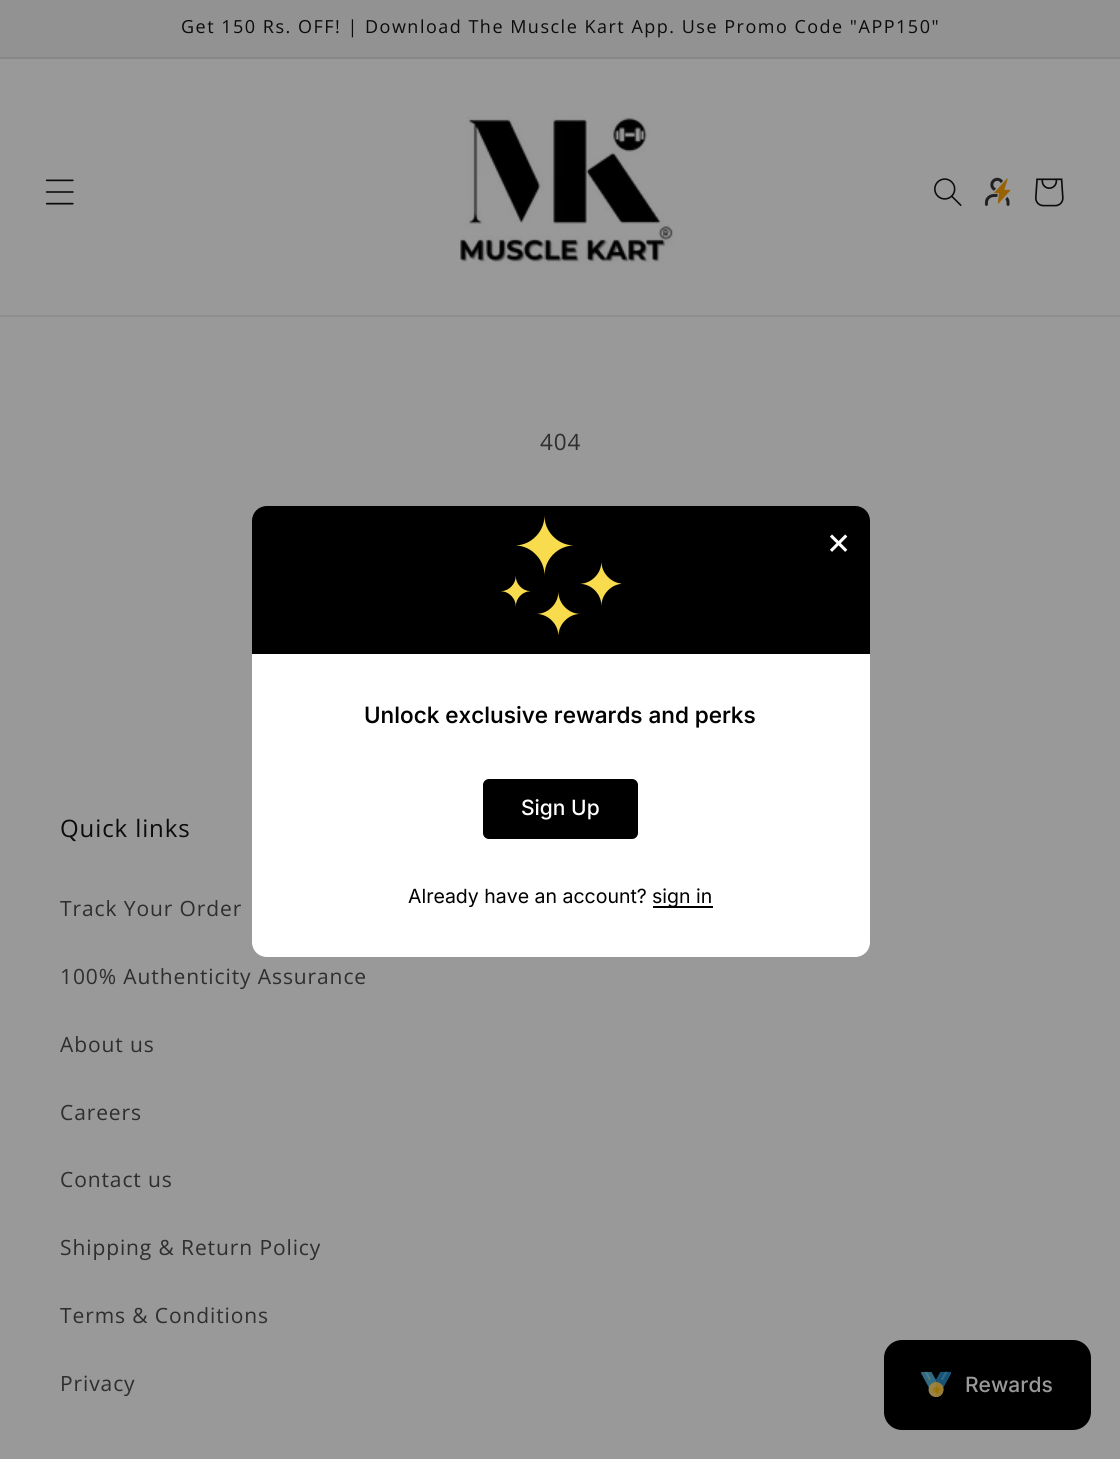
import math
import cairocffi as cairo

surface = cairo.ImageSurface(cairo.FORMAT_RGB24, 1120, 1459)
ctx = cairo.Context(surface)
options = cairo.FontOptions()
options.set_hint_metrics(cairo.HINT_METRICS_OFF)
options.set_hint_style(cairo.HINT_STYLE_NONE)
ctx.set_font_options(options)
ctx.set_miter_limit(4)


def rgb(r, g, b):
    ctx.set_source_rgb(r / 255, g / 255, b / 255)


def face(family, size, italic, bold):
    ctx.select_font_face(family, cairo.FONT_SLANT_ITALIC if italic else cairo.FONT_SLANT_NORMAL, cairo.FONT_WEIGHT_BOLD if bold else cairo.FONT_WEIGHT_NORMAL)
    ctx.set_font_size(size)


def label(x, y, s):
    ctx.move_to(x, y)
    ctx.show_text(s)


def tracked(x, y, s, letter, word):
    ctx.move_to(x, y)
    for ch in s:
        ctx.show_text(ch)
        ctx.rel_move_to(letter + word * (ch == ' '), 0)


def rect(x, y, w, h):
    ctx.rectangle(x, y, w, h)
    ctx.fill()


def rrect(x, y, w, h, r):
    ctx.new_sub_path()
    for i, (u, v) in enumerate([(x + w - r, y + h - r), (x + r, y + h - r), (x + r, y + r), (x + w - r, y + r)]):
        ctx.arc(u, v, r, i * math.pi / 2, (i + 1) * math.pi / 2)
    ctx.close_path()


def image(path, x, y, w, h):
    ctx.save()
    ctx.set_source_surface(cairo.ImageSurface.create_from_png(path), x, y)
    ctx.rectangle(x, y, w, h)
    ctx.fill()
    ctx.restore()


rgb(153, 153, 153)
ctx.paint()
rgb(146, 146, 146)
rect(0, 0, 1120, 57)
rgb(135, 135, 135)
rect(0, 57, 1120, 2)
face('Open Sans', 18, 0, 0)
rgb(11, 11, 11)
tracked(181, 33, 'Get 150 Rs. OFF! | Download The Muscle Kart App. Use Promo Code "APP150"', 1.5, 0)
rgb(142, 142, 142)
rect(0, 315, 1120, 2)
image('image0.png', 45, 179, 29, 26)
image('image1.png', 460, 116, 214, 149)
image('image2.png', 934, 178, 28, 28)
image('image3.png', 984, 177, 27, 29)
image('image4.png', 1035, 178, 29, 29)
face('Open Sans', 22.5, 0, 0)
rgb(46, 46, 46)
tracked(540, 450, '404', 0.9, 0)
face('Open Sans', 24, 0, 0)
rgb(11, 11, 11)
tracked(60, 837, 'Quick links', 0.9, 0)
face('Open Sans', 21, 0, 0)
rgb(46, 46, 46)
tracked(60, 916, 'Track Your Order', 0.9, 0)
tracked(60, 984, '100% Authenticity Assurance', 0.9, 0)
tracked(60, 1052, 'About us', 0.9, 0)
tracked(60, 1120, 'Careers', 0.9, 0)
tracked(60, 1187, 'Contact us', 0.9, 0)
tracked(60, 1255, 'Shipping & Return Policy', 0.9, 0)
tracked(60, 1323, 'Terms & Conditions', 0.9, 0)
tracked(60, 1391, 'Privacy', 0.9, 0)
rgb(0, 0, 0)
ctx.new_path()
ctx.move_to(267, 506)
ctx.line_to(855, 506)
ctx.curve_to(863.5, 506, 870, 512.5, 870, 521)
ctx.line_to(870, 654)
ctx.line_to(252, 654)
ctx.line_to(252, 521)
ctx.curve_to(252, 512.5, 258.5, 506, 267, 506)
ctx.close_path()
ctx.fill()
image('image5.png', 501, 515, 120, 120)
rgb(255, 255, 255)
ctx.new_path()
ctx.move_to(252, 654)
ctx.line_to(870, 654)
ctx.line_to(870, 942)
ctx.curve_to(870, 950.5, 863.5, 957, 855, 957)
ctx.line_to(267, 957)
ctx.curve_to(258.5, 957, 252, 950.5, 252, 942)
ctx.close_path()
ctx.fill()
face('Inter', 38, 0, 0)
label(826, 554, '×')
face('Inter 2 Medium', 22.5, 0, 0)
rgb(0, 0, 0)
label(364, 723, 'Unlock exclusive rewards and perks')
rrect(483, 779, 155, 60, 6)
ctx.fill()
face('Inter Medium', 21, 0, 0)
rgb(255, 255, 255)
label(521, 815, 'Sign Up')
face('Inter', 19.5, 0, 0)
rgb(0, 0, 0)
label(408, 903, 'Already have an account?')
rect(653, 906, 60, 2)
label(652, 903, 'sign in')
rrect(884, 1340, 207, 90, 18)
ctx.fill()
image('image6.png', 921, 1371, 30, 27)
face('Inter Medium', 21, 0, 0)
rgb(153, 153, 153)
label(965, 1392, 'Rewards')
surface.write_to_png('render.png')
